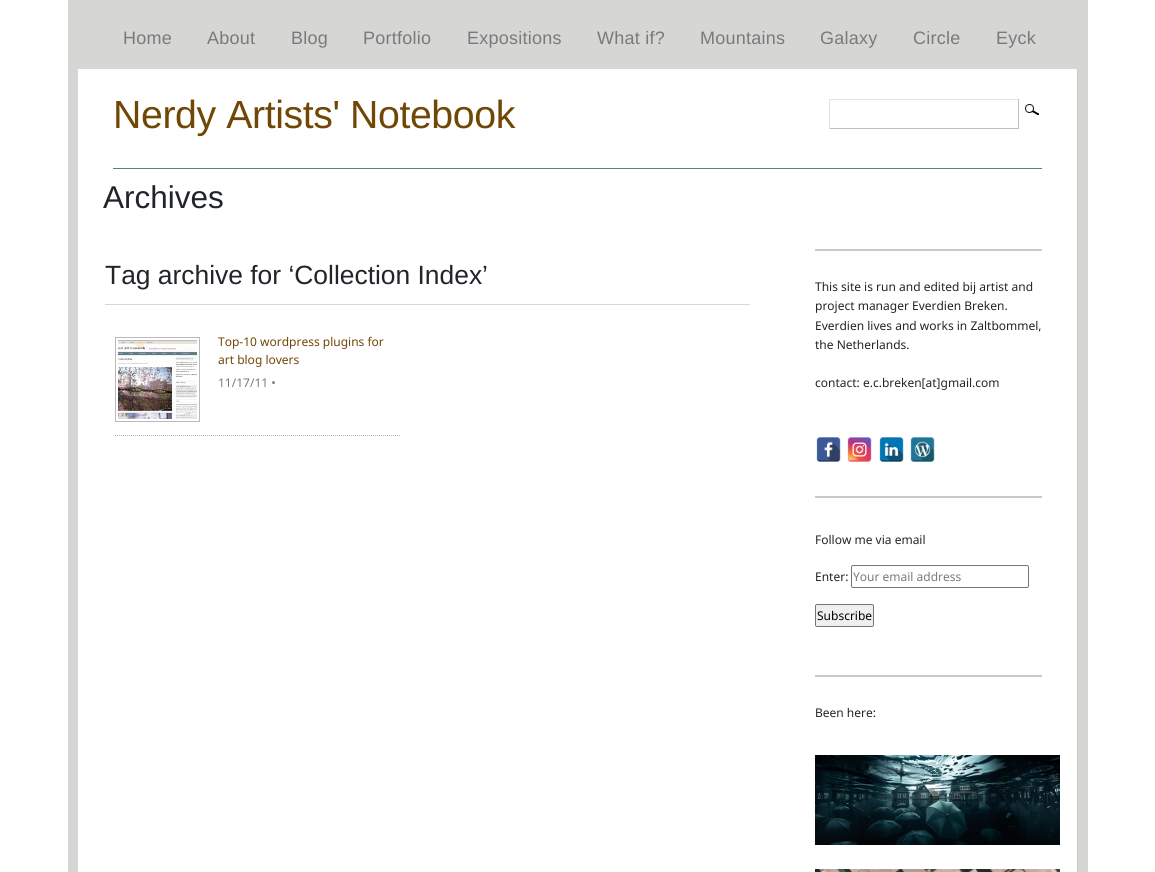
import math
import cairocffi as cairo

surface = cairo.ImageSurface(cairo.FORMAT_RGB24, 1155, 872)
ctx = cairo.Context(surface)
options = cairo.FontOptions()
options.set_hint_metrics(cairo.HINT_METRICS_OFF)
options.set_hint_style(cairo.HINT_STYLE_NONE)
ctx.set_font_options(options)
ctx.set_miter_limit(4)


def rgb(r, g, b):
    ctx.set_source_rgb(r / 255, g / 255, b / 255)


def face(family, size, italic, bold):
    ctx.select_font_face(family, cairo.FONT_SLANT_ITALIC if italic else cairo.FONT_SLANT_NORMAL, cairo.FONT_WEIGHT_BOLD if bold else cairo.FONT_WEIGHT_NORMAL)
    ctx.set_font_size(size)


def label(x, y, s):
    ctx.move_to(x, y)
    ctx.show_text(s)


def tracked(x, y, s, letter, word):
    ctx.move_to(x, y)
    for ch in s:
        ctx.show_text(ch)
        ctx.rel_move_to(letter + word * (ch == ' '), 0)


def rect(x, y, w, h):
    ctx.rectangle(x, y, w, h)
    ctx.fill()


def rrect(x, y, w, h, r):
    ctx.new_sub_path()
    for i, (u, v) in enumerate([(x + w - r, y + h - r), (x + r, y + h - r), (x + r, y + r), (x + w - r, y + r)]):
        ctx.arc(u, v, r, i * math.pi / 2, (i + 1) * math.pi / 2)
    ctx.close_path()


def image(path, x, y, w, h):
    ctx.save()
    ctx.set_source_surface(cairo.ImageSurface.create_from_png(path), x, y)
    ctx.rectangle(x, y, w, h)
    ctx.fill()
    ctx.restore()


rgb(255, 255, 255)
ctx.paint()
rgb(214, 214, 213)
rect(68, 0, 1020, 872)
face('Liberation Sans', 18, 0, 0)
rgb(122, 122, 122)
tracked(123, 44, 'Home', 0.25, 0)
tracked(207, 44, 'About', 0.25, 0)
tracked(291, 44, 'Blog', 0.25, 0)
tracked(363, 44, 'Portfolio', 0.25, 0)
tracked(467, 44, 'Expositions', 0.25, 0)
tracked(597, 44, 'What if?', 0.25, 0)
tracked(700, 44, 'Mountains', 0.25, 0)
tracked(820, 44, 'Galaxy', 0.25, 0)
tracked(913, 44, 'Circle', 0.25, 0)
tracked(996, 44, 'Eyck', 0.25, 0)
rgb(255, 255, 255)
rect(78, 69, 999, 803)
rgb(202, 200, 194)
rect(1077, 69, 1, 803)
rgb(96, 123, 136)
rect(113, 168, 929, 1)
face('Liberation Sans', 39.25, 0, 0)
rgb(112, 71, 4)
tracked(113, 128, 'Nerdy Artists\' Notebook', -0.4, 0)
rgb(226, 226, 226)
rect(829, 99, 190, 1)
rgb(191, 191, 191)
rect(1018, 99, 1, 30)
rect(829, 128, 190, 1)
rgb(226, 226, 226)
rect(829, 99, 1, 30)
image('image0.png', 1025, 104, 14, 11)
face('Liberation Sans', 31.5, 0, 0)
rgb(33, 37, 41)
label(103, 208, 'Archives')
rgb(215, 215, 215)
rect(105, 304, 645, 1)
face('Liberation Sans', 26.4, 0, 0)
rgb(33, 37, 41)
label(105, 284, 'Tag archive for ‘Collection Index’')
ctx.new_path()
ctx.move_to(115, 435.5)
ctx.line_to(400, 435.5)
rgb(177, 177, 177)
ctx.set_line_width(1)
ctx.set_dash([1, 1])
ctx.stroke()
ctx.rectangle(115.5, 337.5, 84, 84)
rgb(185, 185, 185)
ctx.set_dash([])
ctx.stroke()
image('image1.png', 118, 340, 79, 79)
face('Noto Sans', 12, 0, 0)
rgb(112, 71, 4)
label(218, 346, 'Top-10 wordpress plugins for')
label(218, 364, 'art blog lovers')
rgb(122, 122, 122)
label(218, 387, '11/17/11 •')
rgb(200, 201, 202)
rect(815, 249, 227, 2)
rgb(33, 37, 41)
label(815, 291, 'This site is run and edited bij artist and')
label(815, 310, 'project manager Everdien Breken.')
label(815, 330, 'Everdien lives and works in Zaltbommel,')
label(815, 349, 'the Netherlands.')
label(815, 387, 'contact: e.c.breken[at]gmail.com')
image('image2.png', 816, 437, 25, 25)
image('image3.png', 847, 437, 25, 25)
image('image4.png', 879, 437, 25, 25)
image('image5.png', 910, 437, 25, 25)
rgb(200, 201, 202)
rect(815, 496, 227, 2)
rgb(33, 37, 41)
label(815, 544, 'Follow me via email')
label(815, 581, 'Enter:')
rrect(851.5, 565.5, 177, 22, 1.5)
rgb(118, 118, 118)
ctx.stroke()
rgb(122, 122, 122)
label(853, 581, 'Your email address')
rgb(239, 239, 239)
rrect(815.5, 604.5, 58, 22, 1.5)
ctx.fill_preserve()
rgb(118, 118, 118)
ctx.stroke()
rgb(0, 0, 0)
label(817, 620, 'Subscribe')
rgb(200, 201, 202)
rect(815, 675, 227, 2)
rgb(33, 37, 41)
label(815, 717, 'Been here:')
image('image6.png', 815, 755, 245, 90)
image('image7.png', 815, 869, 245, 3)
surface.write_to_png('render.png')
